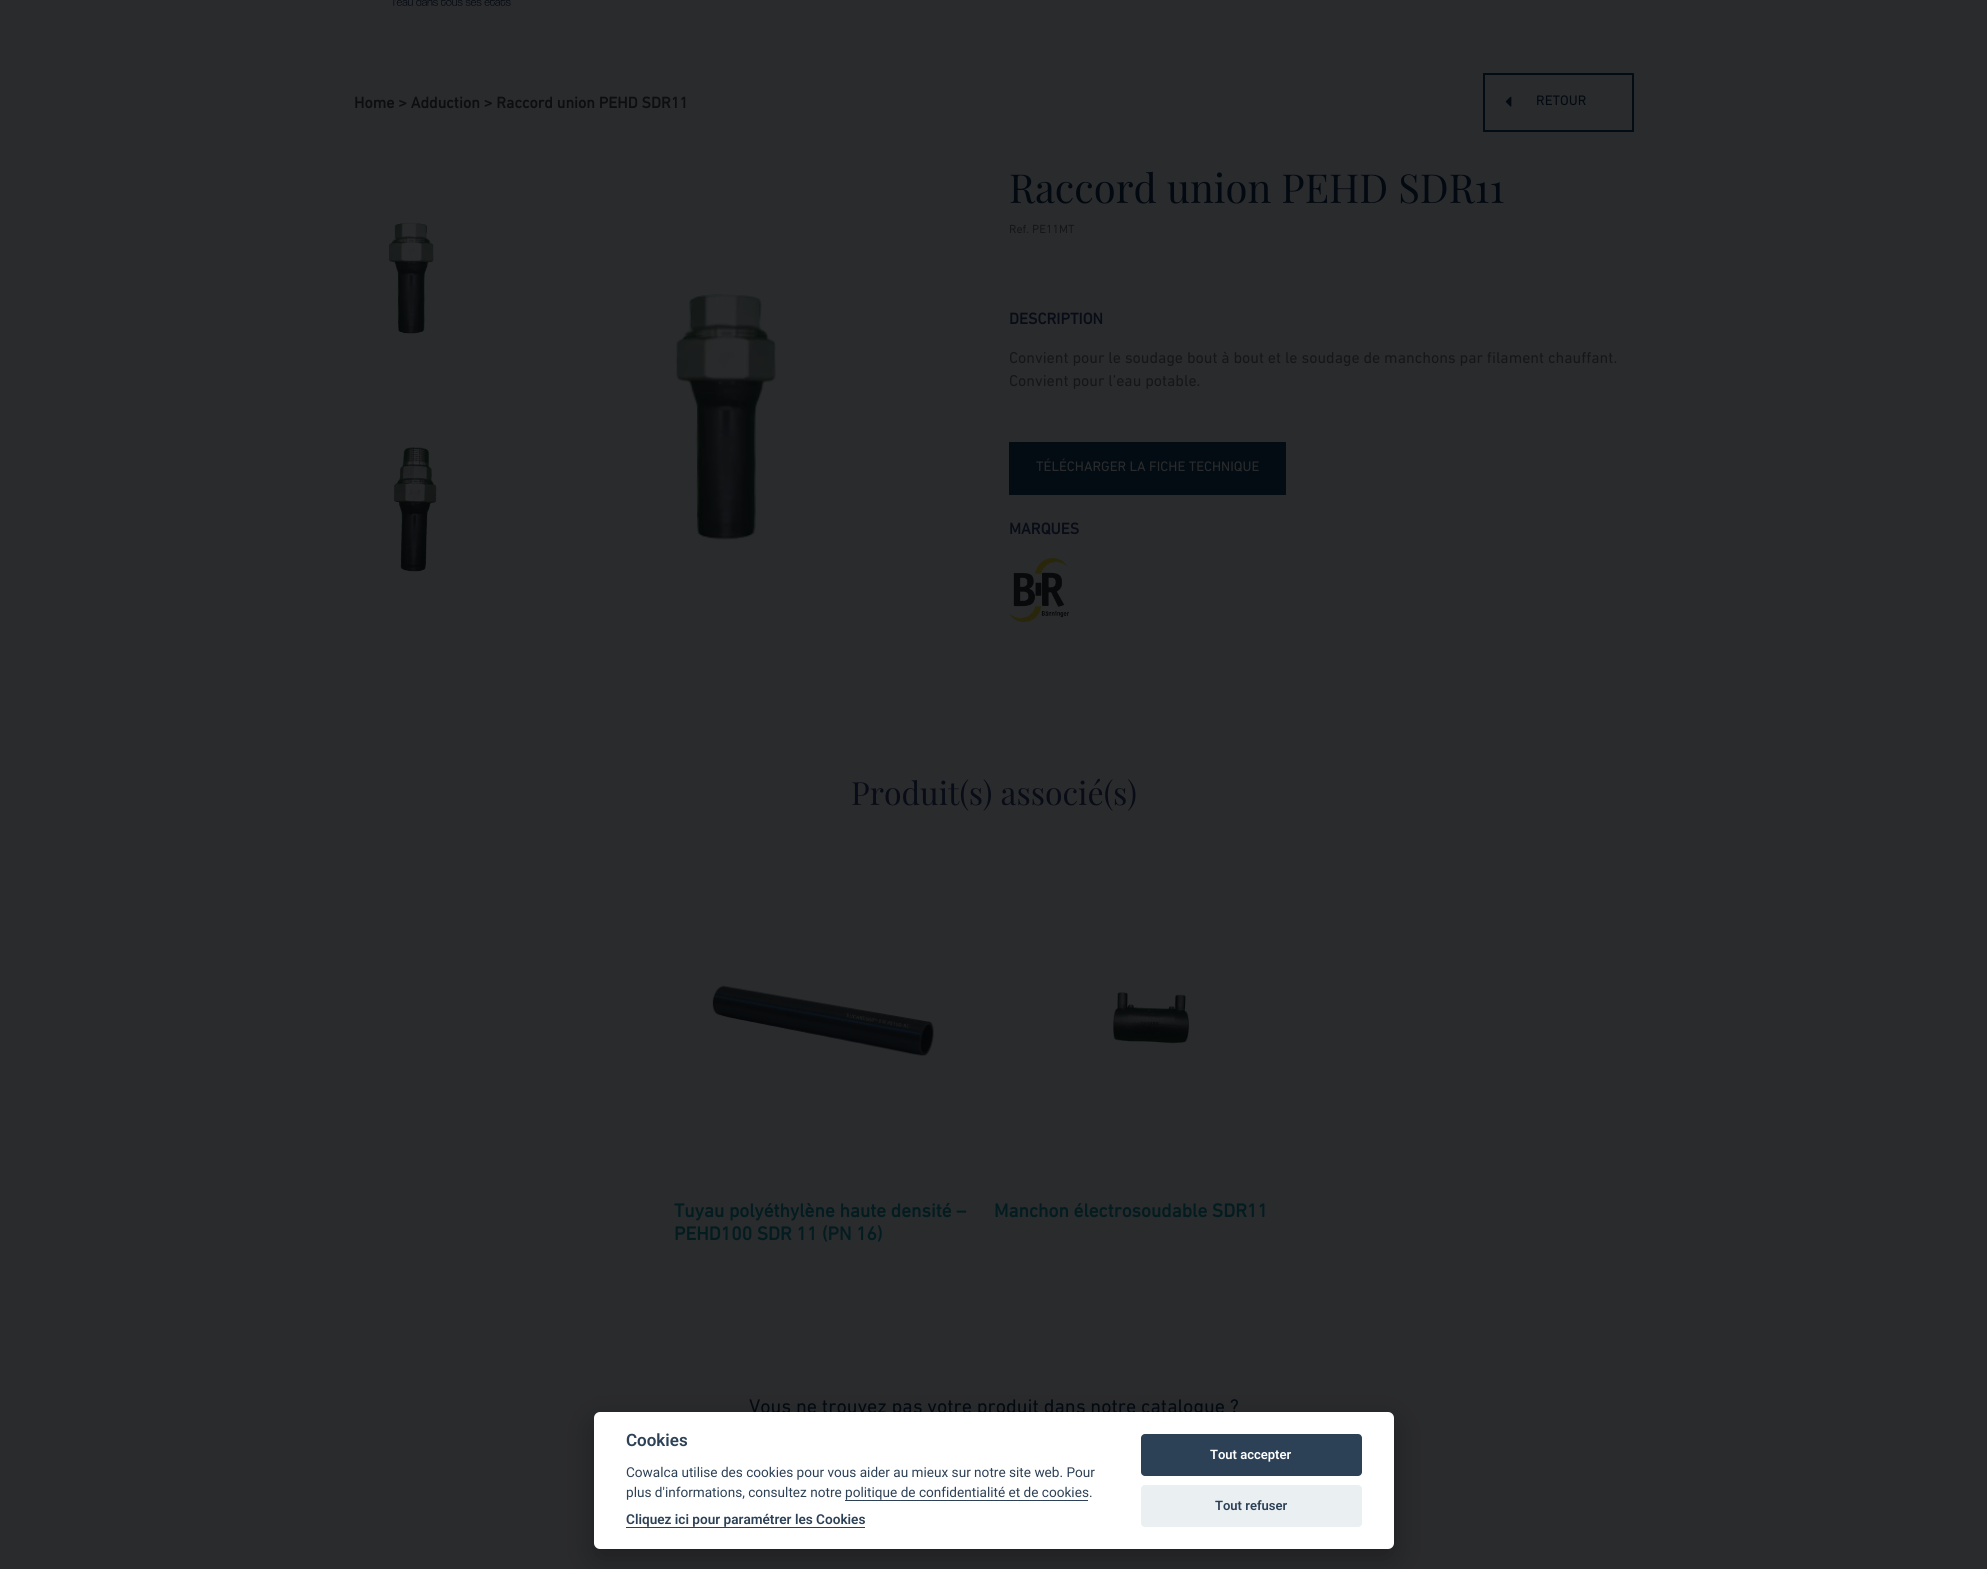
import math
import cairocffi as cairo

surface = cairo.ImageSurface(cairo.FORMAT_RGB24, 1987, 1569)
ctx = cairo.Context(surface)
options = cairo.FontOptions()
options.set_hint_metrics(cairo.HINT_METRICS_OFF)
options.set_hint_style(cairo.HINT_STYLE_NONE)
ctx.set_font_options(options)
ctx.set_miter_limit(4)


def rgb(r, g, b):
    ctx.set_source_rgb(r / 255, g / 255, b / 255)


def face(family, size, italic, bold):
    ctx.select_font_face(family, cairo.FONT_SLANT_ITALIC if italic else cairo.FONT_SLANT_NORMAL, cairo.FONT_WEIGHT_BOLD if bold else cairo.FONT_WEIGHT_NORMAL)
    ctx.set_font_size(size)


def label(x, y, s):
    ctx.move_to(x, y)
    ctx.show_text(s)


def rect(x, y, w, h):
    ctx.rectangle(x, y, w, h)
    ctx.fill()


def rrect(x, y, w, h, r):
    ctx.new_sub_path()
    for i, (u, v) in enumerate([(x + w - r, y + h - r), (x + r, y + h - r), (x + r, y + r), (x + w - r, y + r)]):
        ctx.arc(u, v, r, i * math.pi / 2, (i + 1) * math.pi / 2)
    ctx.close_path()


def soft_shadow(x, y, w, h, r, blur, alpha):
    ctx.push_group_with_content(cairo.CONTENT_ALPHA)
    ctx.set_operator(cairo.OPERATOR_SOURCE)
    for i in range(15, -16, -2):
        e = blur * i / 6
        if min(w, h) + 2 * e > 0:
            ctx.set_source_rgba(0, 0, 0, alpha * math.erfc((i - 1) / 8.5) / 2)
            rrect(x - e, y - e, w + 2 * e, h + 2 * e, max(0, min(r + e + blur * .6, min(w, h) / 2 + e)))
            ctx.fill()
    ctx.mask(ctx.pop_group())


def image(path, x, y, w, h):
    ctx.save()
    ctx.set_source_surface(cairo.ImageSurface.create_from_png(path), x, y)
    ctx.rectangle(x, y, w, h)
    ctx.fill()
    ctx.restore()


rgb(42, 43, 45)
ctx.paint()
image('image0.png', 393, 0, 118, 6)
face('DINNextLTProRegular', 16, 0, 1)
rgb(12, 14, 15)
label(354, 108, 'Home > Adduction > Raccord union PEHD SDR11')
ctx.rectangle(1484, 74, 149, 57)
rgb(3, 12, 19)
ctx.stroke()
image('image1.png', 1505, 96, 7, 11)
face('DINNextLTProRegular', 14, 0, 0)
rgb(3, 9, 17)
label(1536, 105, 'RETOUR')
face('Playfair Display', 40, 0, 0)
label(1009, 203, 'Raccord union PEHD SDR11')
face('DINNextLTProRegular', 12, 0, 0)
rgb(20, 22, 24)
label(1009, 233, 'Ref. PE11MT')
image('image2.png', 388, 222, 46, 112)
image('image3.png', 393, 447, 44, 125)
image('image4.png', 675, 294, 101, 246)
face('DINNextLTProRegular', 16, 0, 1)
rgb(9, 12, 22)
label(1009, 324, 'DESCRIPTION')
face('DINNextLTProRegular', 16, 0, 0)
rgb(20, 22, 24)
label(1009, 363, 'Convient pour le soudage bout à bout et le soudage de manchons par filament chauffant.')
label(1009, 386, 'Convient pour l’eau potable.')
rgb(3, 12, 19)
rect(1009, 442, 277, 53)
face('DINNextLTProRegular', 14, 0, 0)
rgb(42, 43, 45)
label(1036, 471, 'TÉLÉCHARGER LA FICHE TECHNIQUE')
face('DINNextLTProRegular', 16, 0, 1)
rgb(9, 12, 22)
label(1009, 534, 'MARQUES')
image('image5.png', 1009, 558, 60, 64)
face('Playfair Display', 32, 0, 0)
label(851, 805, 'Produit(s) associé(s)')
image('image6.png', 712, 985, 222, 71)
face('DINNextLTProRegular', 19.25, 0, 1)
rgb(3, 28, 32)
label(674, 1217, 'Tuyau polyéthylène haute densité –')
label(674, 1240, 'PEHD100 SDR 11 (PN 16)')
image('image7.png', 1113, 992, 76, 52)
label(994, 1217, 'Manchon électrosoudable SDR11')
face('DINNextLTProRegular', 20, 0, 0)
rgb(3, 9, 17)
label(749, 1413, 'Vous ne trouvez pas votre produit dans notre catalogue ?')
rgb(2, 2, 3)
soft_shadow(594, 1422, 800, 137, 6, 15, 0.28)
rgb(255, 255, 255)
rrect(594, 1412, 800, 137, 6)
ctx.fill()
face('Roboto SemiBold', 17, 0, 0)
rgb(45, 65, 86)
label(626, 1446, 'Cookies')
face('Roboto', 13.6, 0, 0)
label(626, 1477, 'Cowalca utilise des cookies pour vous aider au mieux sur notre site web. Pour')
label(626, 1497, 'plus d\'informations, consultez notre politique de confidentialité et de cookies.')
rect(845, 1500, 243, 1)
face('Roboto SemiBold', 13.6, 0, 0)
label(626, 1524, 'Cliquez ici pour paramétrer les Cookies')
rect(626, 1527, 239, 1)
rrect(1141, 1434, 221, 42, 4)
ctx.fill()
face('Roboto SemiBold', 13, 0, 0)
rgb(255, 255, 255)
label(1210, 1459, 'Tout accepter')
rgb(234, 239, 242)
rrect(1141, 1485, 221, 42, 4)
ctx.fill()
rgb(45, 65, 86)
label(1215, 1510, 'Tout refuser')
surface.write_to_png('render.png')
